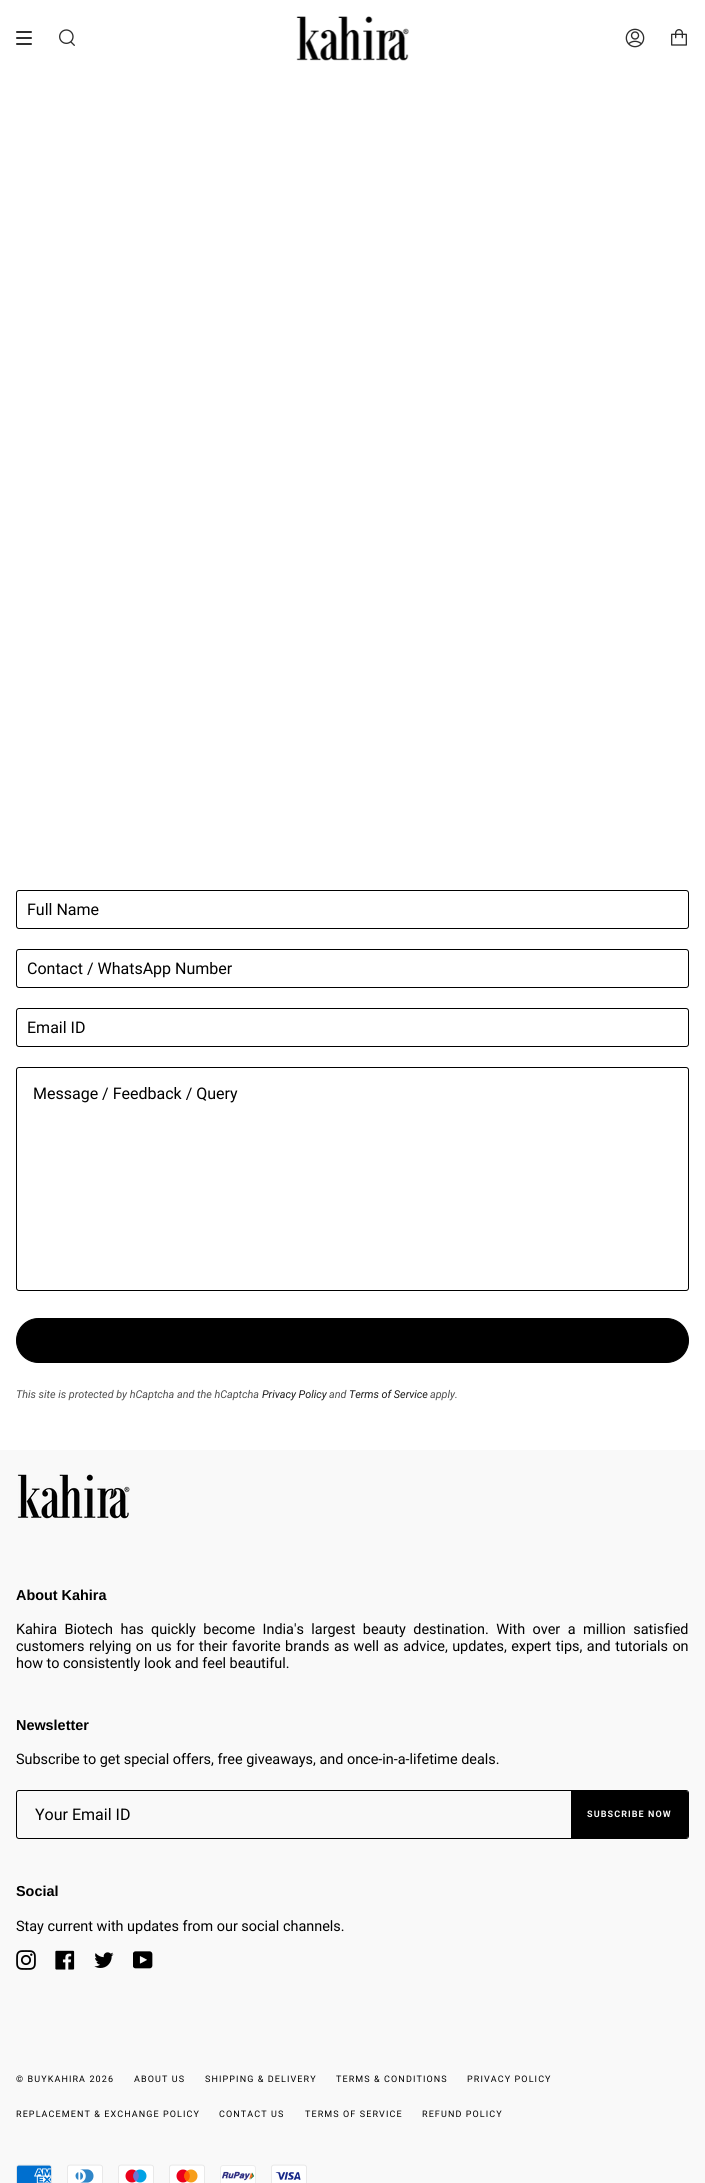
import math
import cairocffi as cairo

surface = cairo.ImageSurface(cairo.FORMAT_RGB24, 705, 2183)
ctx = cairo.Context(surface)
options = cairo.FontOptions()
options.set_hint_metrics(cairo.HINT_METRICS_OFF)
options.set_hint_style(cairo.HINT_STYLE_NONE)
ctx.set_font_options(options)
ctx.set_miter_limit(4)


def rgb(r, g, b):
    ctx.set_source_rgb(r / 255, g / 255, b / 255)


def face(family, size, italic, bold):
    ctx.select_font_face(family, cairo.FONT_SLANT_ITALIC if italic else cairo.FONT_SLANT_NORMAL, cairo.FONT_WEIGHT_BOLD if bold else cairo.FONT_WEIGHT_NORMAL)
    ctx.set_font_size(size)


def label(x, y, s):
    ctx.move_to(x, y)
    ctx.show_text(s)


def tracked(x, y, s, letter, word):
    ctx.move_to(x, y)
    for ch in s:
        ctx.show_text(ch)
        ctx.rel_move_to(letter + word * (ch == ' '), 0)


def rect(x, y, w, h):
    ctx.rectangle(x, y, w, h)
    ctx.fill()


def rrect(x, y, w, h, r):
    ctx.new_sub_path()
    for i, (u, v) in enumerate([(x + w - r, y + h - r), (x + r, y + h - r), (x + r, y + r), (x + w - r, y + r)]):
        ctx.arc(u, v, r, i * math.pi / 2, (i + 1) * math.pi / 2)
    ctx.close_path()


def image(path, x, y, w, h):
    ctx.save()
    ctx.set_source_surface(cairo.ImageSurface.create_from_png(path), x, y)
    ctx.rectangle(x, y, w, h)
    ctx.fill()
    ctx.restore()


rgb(255, 255, 255)
ctx.paint()
rgb(46, 46, 46)
rrect(16, 31, 16, 2, 1)
ctx.fill()
rrect(16, 37, 16, 2, 1)
ctx.fill()
rrect(16, 43, 16, 2, 1)
ctx.fill()
image('image0.png', 59, 29, 16, 17)
image('image1.png', 296, 16, 113, 45)
image('image2.png', 625, 28, 20, 20)
image('image3.png', 671, 29, 16, 17)
rrect(16.5, 890.5, 672, 38, 2.5)
rgb(0, 0, 0)
ctx.set_line_width(1)
ctx.stroke()
face('Roboto', 16, 0, 0)
label(27, 915, 'Full Name')
rrect(16.5, 949.5, 672, 38, 2.5)
ctx.stroke()
label(27, 974, 'Contact / WhatsApp Number')
rrect(16.5, 1008.5, 672, 38, 2.5)
ctx.stroke()
label(27, 1033, 'Email ID')
rrect(16.5, 1067.5, 672, 223, 2.5)
ctx.stroke()
label(33, 1099, 'Message / Feedback / Query')
rrect(16.5, 1318.5, 672, 44, 22)
ctx.fill_preserve()
ctx.stroke()
face('Roboto', 10.8, 1, 0)
rgb(77, 77, 77)
label(16, 1398, 'This site is protected by hCaptcha and the hCaptcha')
rgb(26, 26, 26)
label(262, 1398, 'Privacy Policy')
rgb(77, 77, 77)
label(329, 1398, 'and')
rgb(26, 26, 26)
label(349, 1398, 'Terms of Service')
rgb(77, 77, 77)
label(430, 1398, 'apply.')
rgb(249, 249, 249)
rect(0, 1450, 705, 733)
image('image4.png', 17, 1474, 113, 45)
face('Liberation Sans', 14.4, 0, 1)
rgb(0, 0, 0)
label(16, 1600, 'About Kahira')
face('Roboto', 14.4, 0, 0)
tracked(16, 1634, 'Kahira Biotech has quickly become India\'s largest beauty destination. With over a million satisfied', 0, 3.9)
tracked(16, 1651, 'customers relying on us for their favorite brands as well as advice, updates, expert tips, and tutorials on', 0, 0.9)
label(16, 1668, 'how to consistently look and feel beautiful.')
face('Liberation Sans', 14.4, 0, 1)
label(16, 1730, 'Newsletter')
face('Roboto', 14.4, 0, 0)
label(16, 1764, 'Subscribe to get special offers, free giveaways, and once-in-a-lifetime deals.')
rrect(16.5, 1790.5, 672, 48, 2.5)
ctx.stroke()
face('Roboto', 16, 0, 0)
label(35, 1820, 'Your Email ID')
ctx.new_path()
ctx.move_to(571, 1791)
ctx.line_to(686, 1791)
ctx.curve_to(687, 1791, 688, 1792, 688, 1793)
ctx.line_to(688, 1836)
ctx.curve_to(688, 1837, 687, 1838, 686, 1838)
ctx.line_to(571, 1838)
ctx.close_path()
ctx.fill()
ctx.save()
rrect(17, 1791, 671, 47, 2)
ctx.clip()
rrect(571, 1791, 117, 47, 3)
ctx.fill()
ctx.restore()
face('Roboto', 9, 0, 1)
rgb(249, 249, 249)
tracked(587, 1817, 'SUBSCRIBE NOW', 1.1, 0)
face('Liberation Sans', 14.4, 0, 1)
rgb(0, 0, 0)
label(16, 1896, 'Social')
face('Roboto', 14.4, 0, 0)
label(16, 1931, 'Stay current with updates from our social channels.')
image('image5.png', 16, 1950, 20, 20)
image('image6.png', 55, 1950, 20, 20)
image('image7.png', 94, 1952, 20, 16)
image('image8.png', 133, 1951, 20, 18)
face('Roboto', 9, 0, 0)
tracked(16, 2082, '© BUYKAHIRA 2026', 1.1, 0)
tracked(134, 2082, 'ABOUT US', 1.1, 0)
tracked(205, 2082, 'SHIPPING & DELIVERY', 1.1, 0)
tracked(336, 2082, 'TERMS & CONDITIONS', 1.1, 0)
tracked(467, 2082, 'PRIVACY POLICY', 1.1, 0)
tracked(16, 2117, 'REPLACEMENT & EXCHANGE POLICY', 1.1, 0)
tracked(219, 2117, 'CONTACT US', 1.1, 0)
tracked(305, 2117, 'TERMS OF SERVICE', 1.1, 0)
tracked(422, 2117, 'REFUND POLICY', 1.1, 0)
image('image9.png', 16, 2164, 36, 19)
image('image10.png', 67, 2164, 36, 19)
image('image11.png', 118, 2164, 36, 19)
image('image12.png', 169, 2164, 36, 19)
image('image13.png', 220, 2165, 36, 18)
image('image14.png', 271, 2164, 36, 19)
surface.write_to_png('render.png')
